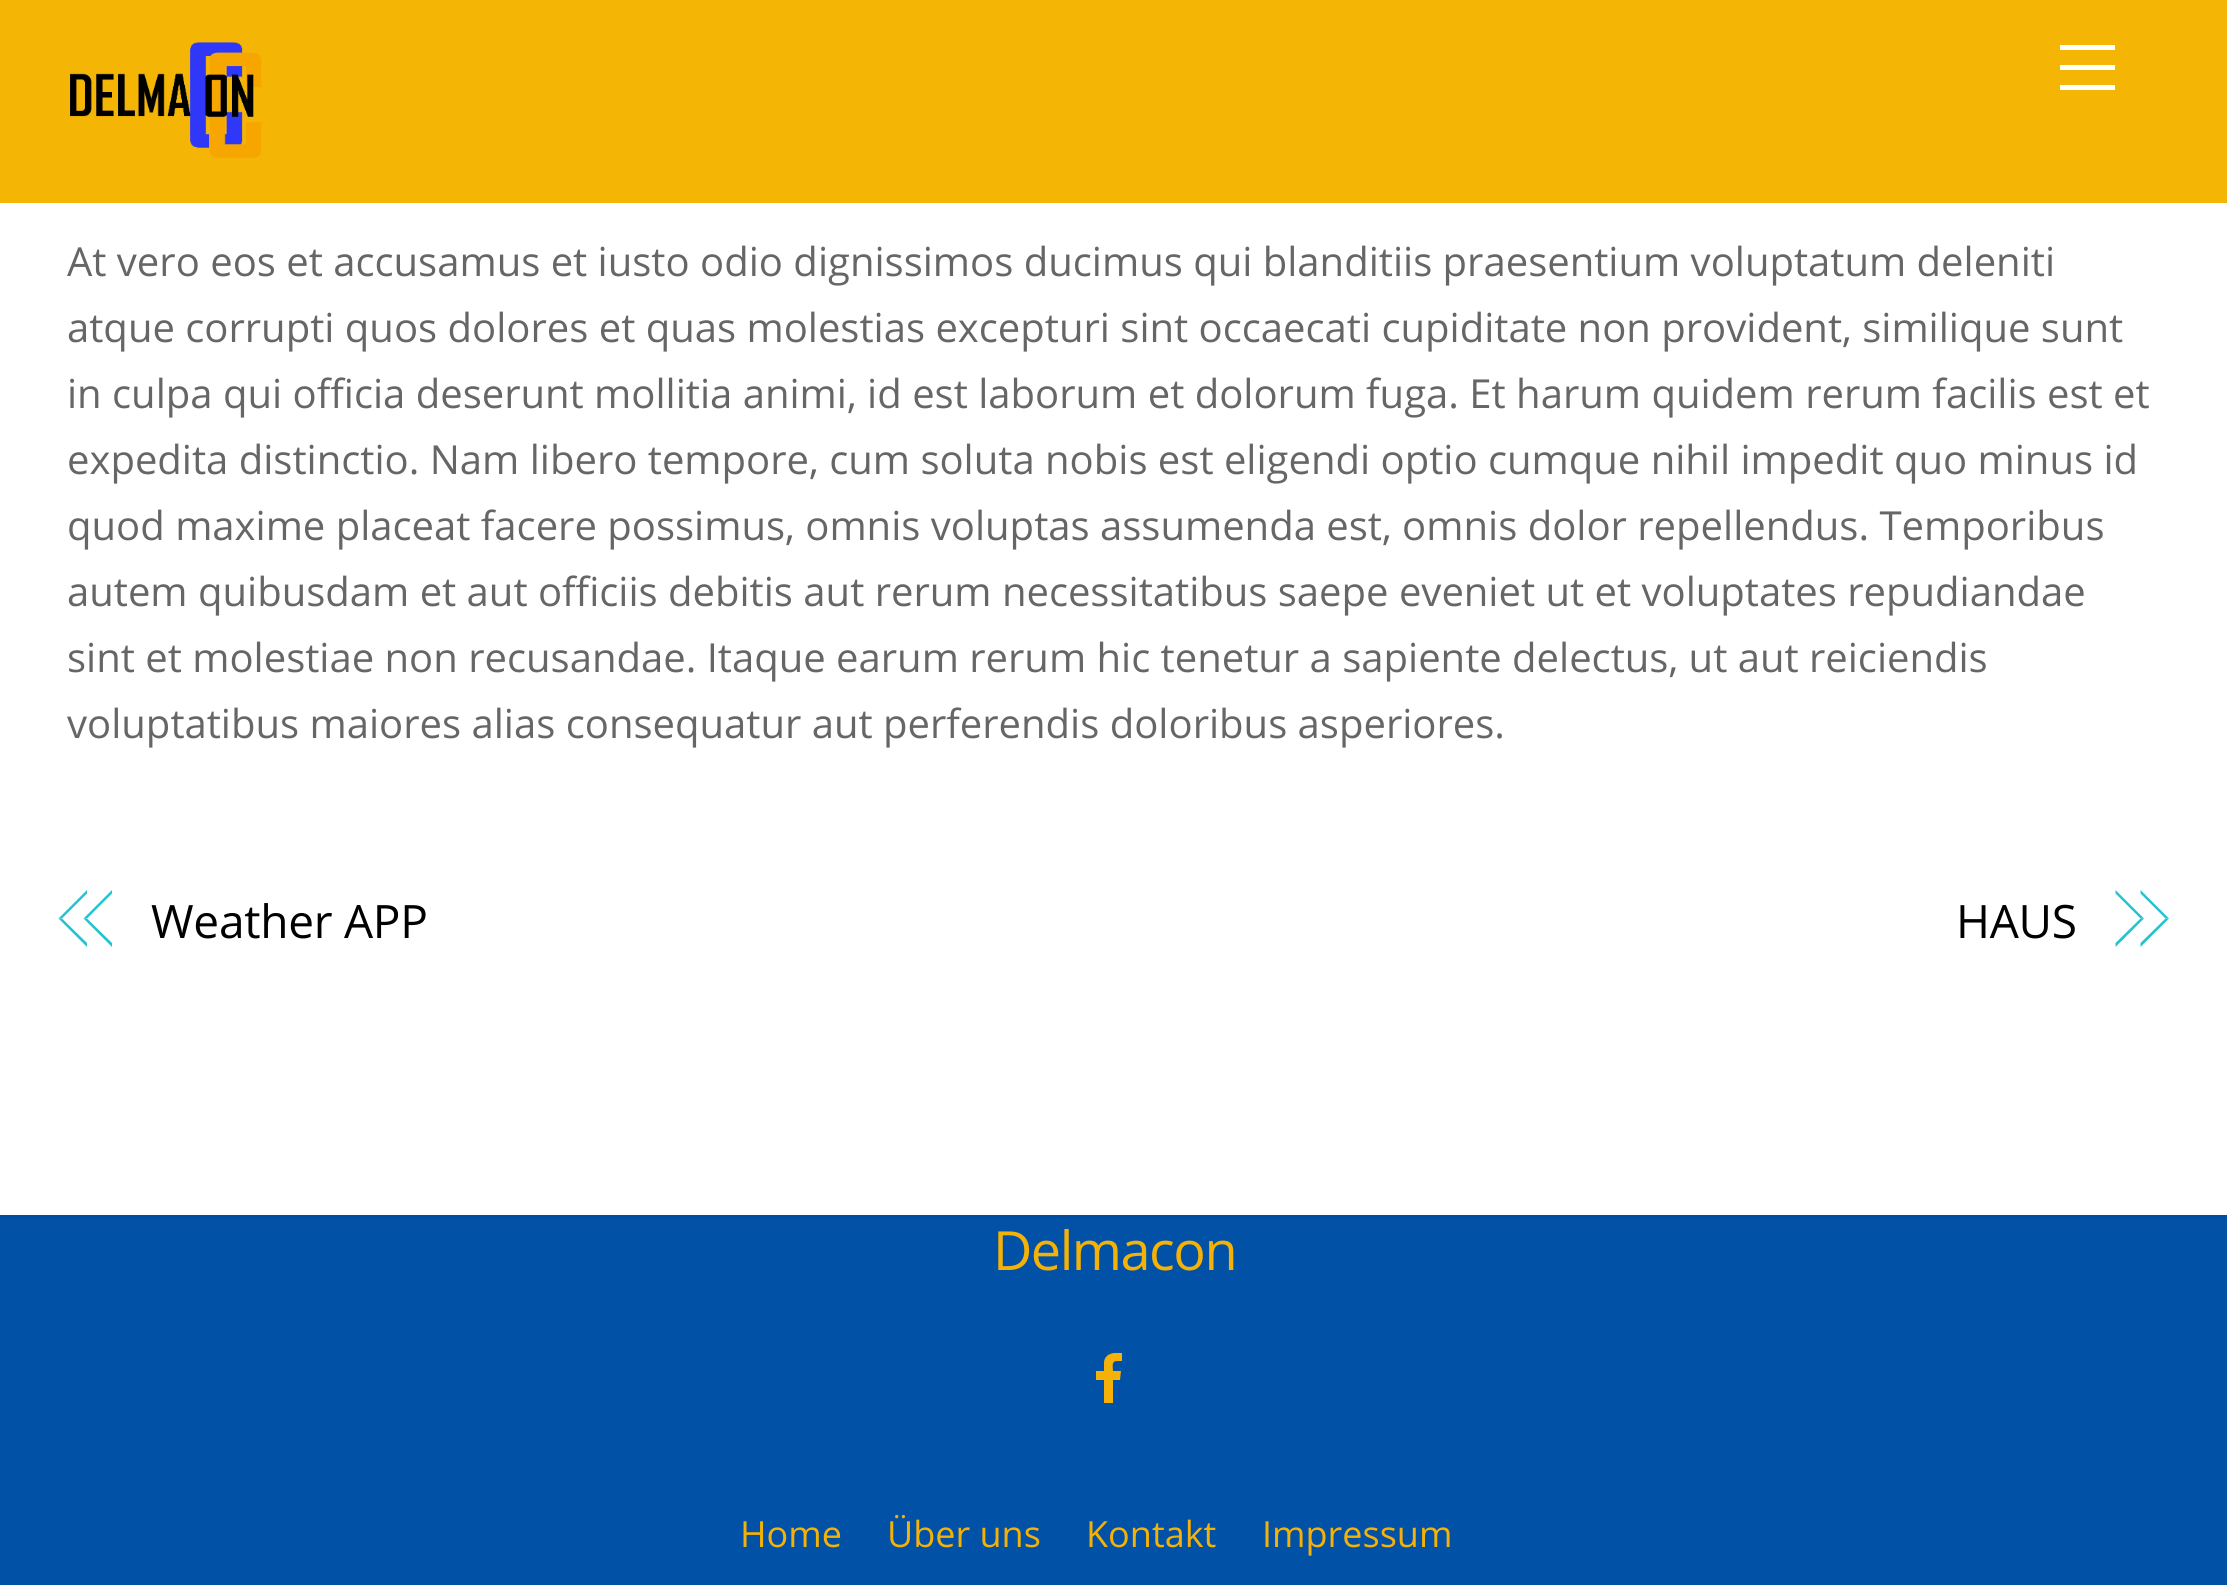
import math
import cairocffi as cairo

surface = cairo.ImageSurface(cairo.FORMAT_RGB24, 2227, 1585)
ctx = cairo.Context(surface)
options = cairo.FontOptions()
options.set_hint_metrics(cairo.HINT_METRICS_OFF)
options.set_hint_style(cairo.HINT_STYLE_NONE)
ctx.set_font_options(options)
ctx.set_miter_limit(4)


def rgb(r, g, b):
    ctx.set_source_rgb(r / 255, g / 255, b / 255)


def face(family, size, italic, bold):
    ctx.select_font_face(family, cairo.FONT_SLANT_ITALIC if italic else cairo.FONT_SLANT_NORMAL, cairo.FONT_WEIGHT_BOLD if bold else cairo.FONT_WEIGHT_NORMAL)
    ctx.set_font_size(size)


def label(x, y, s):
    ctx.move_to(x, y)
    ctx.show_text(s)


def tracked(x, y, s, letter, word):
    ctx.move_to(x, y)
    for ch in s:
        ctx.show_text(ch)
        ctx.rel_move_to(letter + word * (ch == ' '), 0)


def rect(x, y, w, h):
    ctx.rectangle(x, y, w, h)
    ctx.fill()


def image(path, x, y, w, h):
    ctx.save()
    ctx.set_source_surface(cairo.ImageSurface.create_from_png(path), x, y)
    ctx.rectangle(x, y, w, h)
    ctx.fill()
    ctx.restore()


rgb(255, 255, 255)
ctx.paint()
rgb(245, 181, 5)
rect(0, 0, 2227, 203)
image('image0.png', 70, 42, 192, 116)
rgb(255, 255, 255)
rect(2060, 85, 55, 5)
rect(2060, 45, 55, 5)
rect(2060, 65, 55, 5)
face('Open Sans', 40, 0, 0)
rgb(102, 102, 102)
label(67, 276, 'At vero eos et accusamus et iusto odio dignissimos ducimus qui blanditiis praesentium voluptatum deleniti')
label(67, 342, 'atque corrupti quos dolores et quas molestias excepturi sint occaecati cupiditate non provident, similique sunt')
label(67, 408, 'in culpa qui officia deserunt mollitia animi, id est laborum et dolorum fuga. Et harum quidem rerum facilis est et')
label(67, 474, 'expedita distinctio. Nam libero tempore, cum soluta nobis est eligendi optio cumque nihil impedit quo minus id')
label(67, 540, 'quod maxime placeat facere possimus, omnis voluptas assumenda est, omnis dolor repellendus. Temporibus')
label(67, 606, 'autem quibusdam et aut officiis debitis aut rerum necessitatibus saepe eveniet ut et voluptates repudiandae')
label(67, 672, 'sint et molestiae non recusandae. Itaque earum rerum hic tenetur a sapiente delectus, ut aut reiciendis')
label(67, 738, 'voluptatibus maiores alias consequatur aut perferendis doloribus asperiores.')
rgb(35, 195, 209)
ctx.new_path()
ctx.move_to(58.5, 918.5)
ctx.line_to(87, 890)
ctx.line_to(87, 893.5)
ctx.line_to(62, 918.5)
ctx.close_path()
ctx.fill()
ctx.new_path()
ctx.move_to(87, 947)
ctx.line_to(58.5, 918.5)
ctx.line_to(62, 918.5)
ctx.line_to(87, 943)
ctx.close_path()
ctx.fill()
ctx.new_path()
ctx.move_to(83.5, 918.5)
ctx.line_to(112, 890)
ctx.line_to(112, 893.5)
ctx.line_to(87, 918.5)
ctx.close_path()
ctx.fill()
ctx.new_path()
ctx.move_to(112, 947)
ctx.line_to(83.5, 918.5)
ctx.line_to(87, 918.5)
ctx.line_to(112, 943)
ctx.close_path()
ctx.fill()
face('Open Sans', 46, 0, 0)
rgb(0, 0, 0)
tracked(151, 938, 'Weather APP', -0.25, 0)
tracked(1956, 938, 'HAUS', -0.25, 0)
rgb(35, 195, 209)
ctx.new_path()
ctx.move_to(2140.5, 890)
ctx.line_to(2169, 918.5)
ctx.line_to(2165.5, 918.5)
ctx.line_to(2140.5, 893.5)
ctx.close_path()
ctx.fill()
ctx.new_path()
ctx.move_to(2169, 918.5)
ctx.line_to(2140.5, 947)
ctx.line_to(2140.5, 943)
ctx.line_to(2165.5, 918.5)
ctx.close_path()
ctx.fill()
ctx.new_path()
ctx.move_to(2115.5, 890)
ctx.line_to(2144, 918.5)
ctx.line_to(2140.5, 918.5)
ctx.line_to(2115.5, 893.5)
ctx.close_path()
ctx.fill()
ctx.new_path()
ctx.move_to(2144, 918.5)
ctx.line_to(2115.5, 947)
ctx.line_to(2115.5, 943)
ctx.line_to(2140.5, 918.5)
ctx.close_path()
ctx.fill()
rgb(1, 81, 167)
rect(0, 1218, 2227, 367)
rgb(1, 77, 159)
rect(0, 1215, 2227, 3)
face('Open Sans', 54, 0, 0)
rgb(244, 177, 7)
tracked(993, 1270, 'Delmacon', -1.5, 0)
ctx.save()
ctx.rectangle(1085, 1353, 49, 50)
ctx.clip()
ctx.new_path()
ctx.move_to(1117, 1361)
ctx.curve_to(1111, 1361, 1113, 1367, 1113, 1371)
ctx.line_to(1121, 1371)
ctx.line_to(1120, 1380)
ctx.line_to(1113, 1380)
ctx.line_to(1113, 1403)
ctx.line_to(1104, 1403)
ctx.line_to(1104, 1380)
ctx.line_to(1096, 1380)
ctx.line_to(1096, 1371)
ctx.line_to(1104, 1371)
ctx.line_to(1104, 1362)
ctx.curve_to(1105, 1353, 1115, 1352, 1122, 1353)
ctx.line_to(1122, 1361)
ctx.close_path()
ctx.fill()
ctx.restore()
face('Open Sans', 36, 0, 0)
label(740, 1547, 'Home')
label(887, 1547, 'Über uns')
label(1086, 1547, 'Kontakt')
label(1262, 1547, 'Impressum')
surface.write_to_png('render.png')
